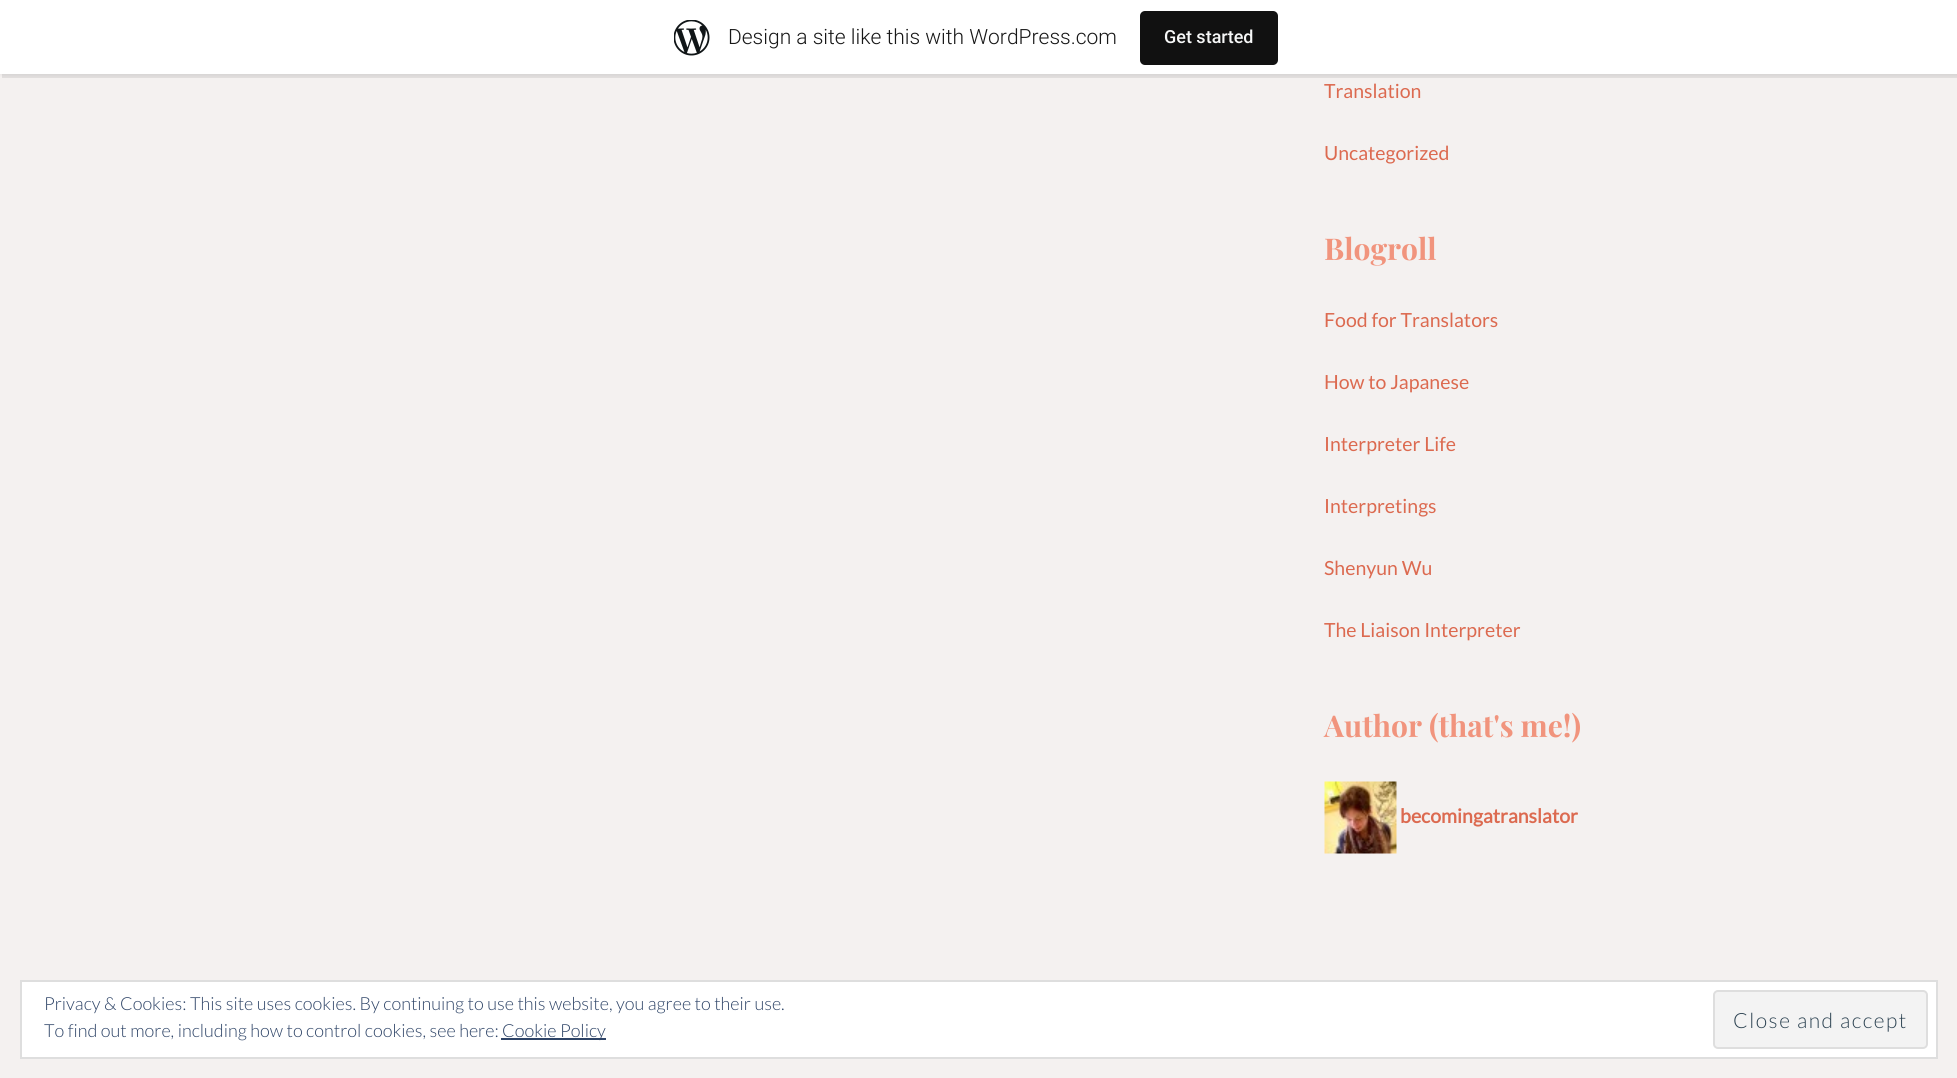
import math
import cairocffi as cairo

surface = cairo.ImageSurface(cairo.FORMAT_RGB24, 1957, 1078)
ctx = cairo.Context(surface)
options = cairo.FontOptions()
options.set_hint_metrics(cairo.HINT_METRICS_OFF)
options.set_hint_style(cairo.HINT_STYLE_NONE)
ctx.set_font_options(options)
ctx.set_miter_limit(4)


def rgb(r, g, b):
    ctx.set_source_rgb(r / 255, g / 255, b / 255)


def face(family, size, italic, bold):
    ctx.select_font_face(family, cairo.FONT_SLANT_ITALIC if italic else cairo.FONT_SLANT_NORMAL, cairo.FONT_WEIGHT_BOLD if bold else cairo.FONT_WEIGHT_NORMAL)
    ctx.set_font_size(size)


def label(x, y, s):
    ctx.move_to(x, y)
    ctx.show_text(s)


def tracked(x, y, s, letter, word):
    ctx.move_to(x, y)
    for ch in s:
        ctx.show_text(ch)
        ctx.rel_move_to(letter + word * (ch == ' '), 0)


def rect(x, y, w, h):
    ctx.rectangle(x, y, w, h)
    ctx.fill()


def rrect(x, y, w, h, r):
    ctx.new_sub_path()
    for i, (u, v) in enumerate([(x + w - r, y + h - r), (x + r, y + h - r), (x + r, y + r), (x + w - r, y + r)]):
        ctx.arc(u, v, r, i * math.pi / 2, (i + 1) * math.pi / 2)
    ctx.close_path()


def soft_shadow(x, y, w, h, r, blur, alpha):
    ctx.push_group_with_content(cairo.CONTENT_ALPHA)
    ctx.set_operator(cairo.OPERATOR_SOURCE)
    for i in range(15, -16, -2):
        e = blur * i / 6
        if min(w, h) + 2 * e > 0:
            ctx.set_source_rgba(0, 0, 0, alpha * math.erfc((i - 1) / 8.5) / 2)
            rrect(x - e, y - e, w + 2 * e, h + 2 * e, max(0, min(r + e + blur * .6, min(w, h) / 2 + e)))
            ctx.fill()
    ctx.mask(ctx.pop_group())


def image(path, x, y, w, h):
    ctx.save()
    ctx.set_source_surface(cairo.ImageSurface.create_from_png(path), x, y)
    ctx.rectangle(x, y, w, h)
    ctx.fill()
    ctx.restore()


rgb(244, 241, 240)
ctx.paint()
rgb(0, 0, 0)
soft_shadow(0, 2, 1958, 73, 0, 1.5, 0.05)
ctx.set_source_rgba(0, 0, 0, 0.08)
ctx.new_path()
ctx.move_to(2, 74)
ctx.line_to(2, 78)
ctx.line_to(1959, 78)
ctx.line_to(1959, 5)
ctx.line_to(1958, 5)
ctx.line_to(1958, 74)
ctx.close_path()
ctx.fill()
rgb(255, 255, 255)
rect(0, 0, 1957, 74)
image('image0.png', 674, 20, 36, 36)
face('Roboto Light', 21, 0, 0)
rgb(23, 23, 23)
label(728, 44, 'Design a site like this with WordPress.com')
rgb(17, 17, 17)
rrect(1140, 11, 138, 54, 5)
ctx.fill()
face('Roboto Medium', 18, 0, 0)
rgb(246, 247, 247)
label(1164, 43, 'Get started')
face('Lato', 19.5, 0, 0)
rgb(220, 106, 80)
label(1324, 98, 'Translation')
label(1324, 160, 'Uncategorized')
face('Playfair Display', 30, 0, 1)
rgb(241, 148, 125)
label(1324, 260, 'Blogroll')
face('Lato', 19.5, 0, 0)
rgb(220, 106, 80)
label(1324, 327, 'Food for Translators')
label(1324, 389, 'How to Japanese')
label(1324, 451, 'Interpreter Life')
label(1324, 513, 'Interpretings')
label(1324, 575, 'Shenyun Wu')
label(1324, 637, 'The Liaison Interpreter')
face('Playfair Display', 30, 0, 1)
rgb(241, 148, 125)
label(1324, 737, 'Author (that\'s me!)')
image('image1.png', 1324, 781, 73, 73)
face('Lato', 19.5, 0, 1)
rgb(220, 106, 80)
label(1400, 823, 'becomingatranslator')
rgb(255, 255, 255)
ctx.rectangle(21, 981, 1916, 77)
ctx.fill_preserve()
rgb(222, 222, 222)
ctx.stroke()
face('Lato Light', 18, 0, 0)
rgb(46, 68, 103)
label(44, 1010, 'Privacy & Cookies: This site uses cookies. By continuing to use this website, you agree to their use.')
label(44, 1037, 'To find out more, including how to control cookies, see here:')
rect(501, 1038, 105, 2)
label(502, 1037, 'Cookie Policy')
rgb(243, 243, 243)
rrect(1714, 991, 213, 57, 4)
ctx.fill_preserve()
rgb(222, 222, 222)
ctx.stroke()
face('Lato Light', 21, 0, 0)
rgb(46, 68, 83)
tracked(1733, 1028, 'Close and accept', 1.5, 0)
surface.write_to_png('render.png')
